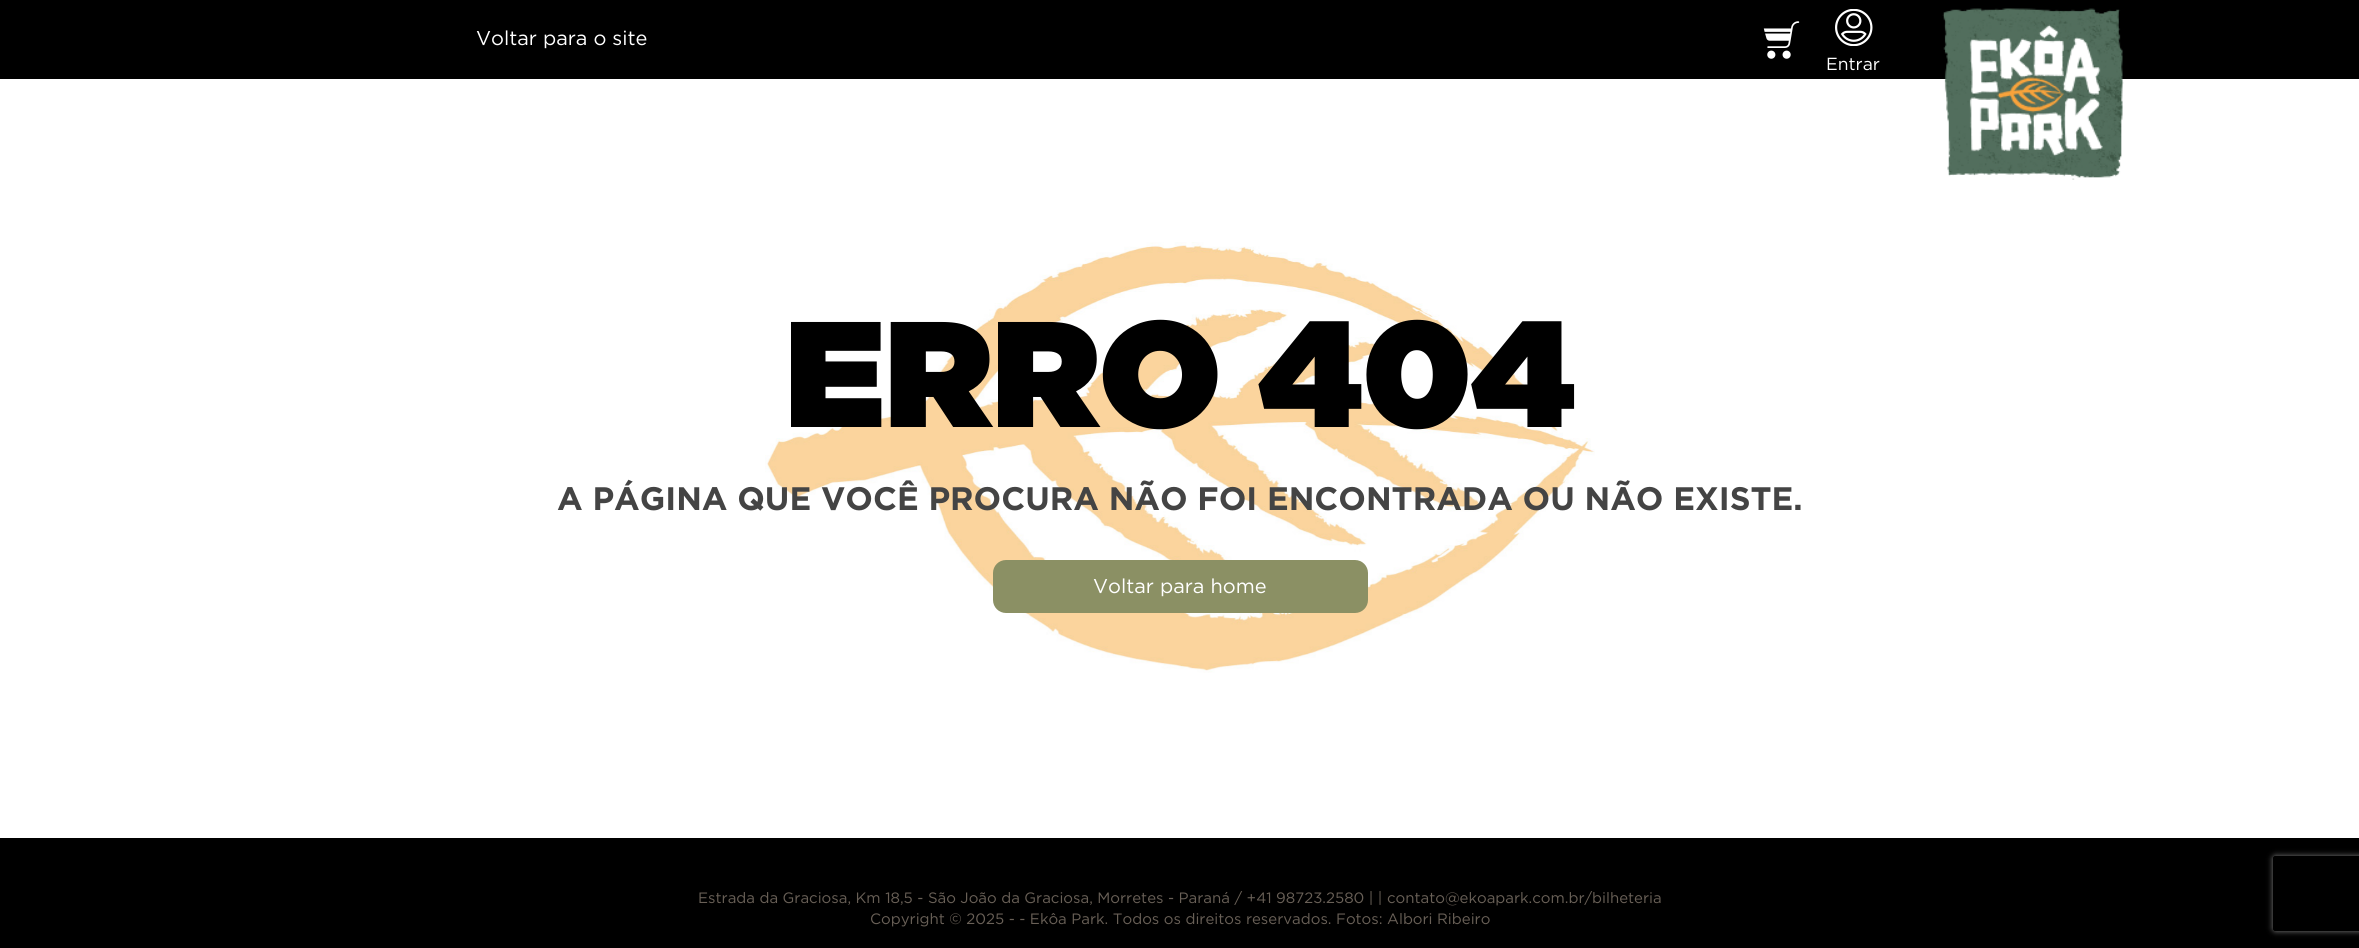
import math
import cairocffi as cairo

surface = cairo.ImageSurface(cairo.FORMAT_RGB24, 2359, 948)
ctx = cairo.Context(surface)
options = cairo.FontOptions()
options.set_hint_metrics(cairo.HINT_METRICS_OFF)
options.set_hint_style(cairo.HINT_STYLE_NONE)
ctx.set_font_options(options)
ctx.set_miter_limit(4)


def rgb(r, g, b):
    ctx.set_source_rgb(r / 255, g / 255, b / 255)


def face(family, size, italic, bold):
    ctx.select_font_face(family, cairo.FONT_SLANT_ITALIC if italic else cairo.FONT_SLANT_NORMAL, cairo.FONT_WEIGHT_BOLD if bold else cairo.FONT_WEIGHT_NORMAL)
    ctx.set_font_size(size)


def label(x, y, s):
    ctx.move_to(x, y)
    ctx.show_text(s)


def rect(x, y, w, h):
    ctx.rectangle(x, y, w, h)
    ctx.fill()


def rrect(x, y, w, h, r):
    ctx.new_sub_path()
    for i, (u, v) in enumerate([(x + w - r, y + h - r), (x + r, y + h - r), (x + r, y + r), (x + w - r, y + r)]):
        ctx.arc(u, v, r, i * math.pi / 2, (i + 1) * math.pi / 2)
    ctx.close_path()


def soft_shadow(x, y, w, h, r, blur, alpha):
    ctx.push_group_with_content(cairo.CONTENT_ALPHA)
    ctx.set_operator(cairo.OPERATOR_SOURCE)
    for i in range(15, -16, -2):
        e = blur * i / 6
        if min(w, h) + 2 * e > 0:
            ctx.set_source_rgba(0, 0, 0, alpha * math.erfc((i - 1) / 8.5) / 2)
            rrect(x - e, y - e, w + 2 * e, h + 2 * e, max(0, min(r + e + blur * .6, min(w, h) / 2 + e)))
            ctx.fill()
    ctx.mask(ctx.pop_group())


def image(path, x, y, w, h):
    ctx.save()
    ctx.set_source_surface(cairo.ImageSurface.create_from_png(path), x, y)
    ctx.rectangle(x, y, w, h)
    ctx.fill()
    ctx.restore()


rgb(255, 255, 255)
ctx.paint()
rgb(0, 0, 0)
rect(0, 0, 2359, 79)
face('Gotham', 20, 0, 0)
rgb(255, 255, 255)
label(476, 45, 'Voltar para o site')
image('image0.png', 1763, 21, 37, 38)
image('image1.png', 1942, 8, 182, 172)
image('image2.png', 1835, 9, 38, 37)
face('Gotham', 17.5, 0, 0)
label(1826, 70, 'Entrar')
image('image3.png', 765, 242, 830, 431)
face('Gotham Black', 150, 0, 0)
rgb(0, 0, 0)
label(785, 427, 'ERRO 404')
face('Gotham', 32.5, 0, 1)
rgb(68, 68, 68)
label(557, 510, 'A PÁGINA QUE VOCÊ PROCURA NÃO FOI ENCONTRADA OU NÃO EXISTE.')
rgb(139, 144, 100)
rrect(993, 560, 375, 53, 13)
ctx.fill()
face('Gotham', 20, 0, 0)
rgb(255, 255, 255)
label(1093, 593, 'Voltar para home')
rgb(0, 0, 0)
rect(0, 838, 2359, 110)
face('Gotham', 15, 0, 0)
rgb(105, 96, 87)
label(698, 903, 'Estrada da Graciosa, Km 18,5 - São João da Graciosa, Morretes - Paraná / +41 98723.2580 | | contato@ekoapark.com.br/bilheteria')
label(870, 924, 'Copyright © 2025 - - Ekôa Park. Todos os direitos reservados. Fotos: Albori Ribeiro')
ctx.save()
ctx.set_fill_rule(cairo.FILL_RULE_EVEN_ODD)
ctx.new_path()
ctx.move_to(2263, 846)
ctx.line_to(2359, 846)
ctx.line_to(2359, 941)
ctx.line_to(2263, 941)
ctx.close_path()
ctx.move_to(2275.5, 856)
ctx.line_to(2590.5, 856)
ctx.curve_to(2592, 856, 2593, 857, 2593, 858.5)
ctx.line_to(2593, 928.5)
ctx.curve_to(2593, 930, 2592, 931, 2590.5, 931)
ctx.line_to(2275.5, 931)
ctx.curve_to(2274, 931, 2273, 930, 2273, 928.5)
ctx.line_to(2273, 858.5)
ctx.curve_to(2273, 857, 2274, 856, 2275.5, 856)
ctx.close_path()
ctx.clip()
rgb(128, 128, 128)
soft_shadow(2273, 856, 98, 75, 2.5, 3, 1)
ctx.restore()
surface.write_to_png('render.png')
